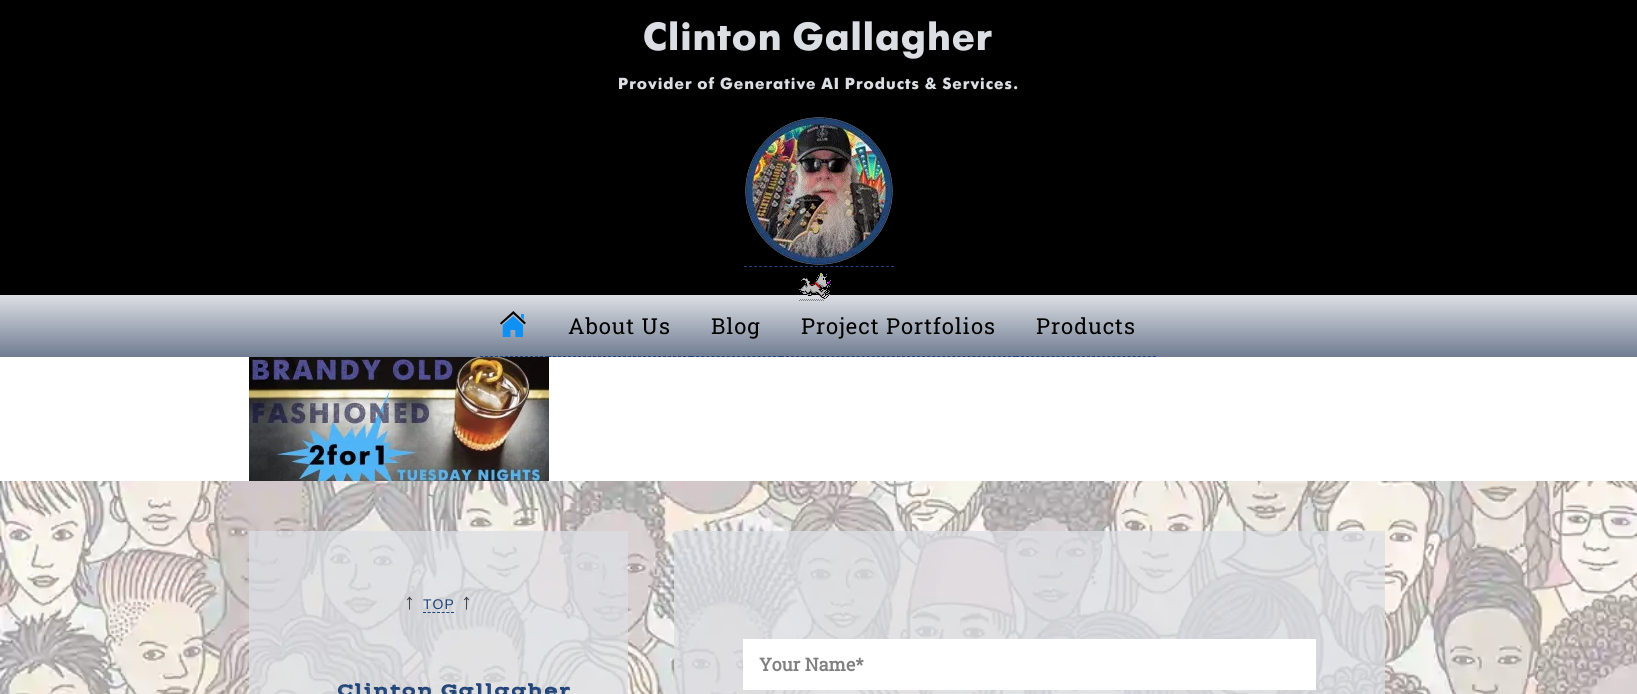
import math
import cairocffi as cairo

surface = cairo.ImageSurface(cairo.FORMAT_RGB24, 1637, 694)
ctx = cairo.Context(surface)
options = cairo.FontOptions()
options.set_hint_metrics(cairo.HINT_METRICS_OFF)
options.set_hint_style(cairo.HINT_STYLE_NONE)
ctx.set_font_options(options)
ctx.set_miter_limit(4)


def rgb(r, g, b):
    ctx.set_source_rgb(r / 255, g / 255, b / 255)


def face(family, size, italic, bold):
    ctx.select_font_face(family, cairo.FONT_SLANT_ITALIC if italic else cairo.FONT_SLANT_NORMAL, cairo.FONT_WEIGHT_BOLD if bold else cairo.FONT_WEIGHT_NORMAL)
    ctx.set_font_size(size)


def label(x, y, s):
    ctx.move_to(x, y)
    ctx.show_text(s)


def tracked(x, y, s, letter, word):
    ctx.move_to(x, y)
    for ch in s:
        ctx.show_text(ch)
        ctx.rel_move_to(letter + word * (ch == ' '), 0)


def rect(x, y, w, h):
    ctx.rectangle(x, y, w, h)
    ctx.fill()


def image(path, x, y, w, h):
    ctx.save()
    ctx.set_source_surface(cairo.ImageSurface.create_from_png(path), x, y)
    ctx.rectangle(x, y, w, h)
    ctx.fill()
    ctx.restore()


rgb(255, 255, 255)
ctx.paint()
rgb(0, 0, 0)
rect(0, 0, 1637, 295)
face('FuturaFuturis', 39, 0, 1)
rgb(219, 222, 227)
tracked(643, 50, 'Clinton Gallagher', 1, 0)
face('FuturaFuturis', 16, 0, 1)
tracked(618, 89, 'Provider of Generative AI Products & Services.', 1, 0)
ctx.new_path()
ctx.move_to(744, 266.5)
ctx.line_to(894, 266.5)
rgb(33, 68, 120)
ctx.set_line_width(1)
ctx.set_dash([3, 2.07])
ctx.stroke()
image('image0.png', 745, 117, 148, 148)
gradient = cairo.LinearGradient(819, 295, 819, 357)
gradient.add_color_stop_rgba(0, 0.859, 0.871, 0.89, 1)
gradient.add_color_stop_rgba(1, 0.435, 0.486, 0.569, 1)
ctx.set_source(gradient)
rect(0, 295, 1637, 1)
gradient = cairo.LinearGradient(819, 296, 819, 357)
gradient.add_color_stop_rgba(0, 0.859, 0.871, 0.89, 1)
gradient.add_color_stop_rgba(1, 0.435, 0.486, 0.569, 1)
ctx.set_source(gradient)
rect(0, 296, 1637, 61)
image('image1.png', 799, 273, 32, 28)
ctx.new_path()
ctx.move_to(480, 356.5)
ctx.line_to(548, 356.5)
rgb(33, 68, 120)
ctx.set_dash([3, 2])
ctx.stroke()
image('image2.png', 500, 311, 26, 26)
ctx.new_path()
ctx.move_to(548, 356.5)
ctx.line_to(691, 356.5)
ctx.stroke()
face('Roboto Slab', 22, 0, 0)
rgb(0, 0, 0)
tracked(568, 334, 'About Us', 1, 0)
ctx.new_path()
ctx.move_to(691, 356.5)
ctx.line_to(781, 356.5)
rgb(33, 68, 120)
ctx.set_dash([3, 2.12])
ctx.stroke()
rgb(0, 0, 0)
tracked(711, 334, 'Blog', 1, 0)
ctx.new_path()
ctx.move_to(781, 356.5)
ctx.line_to(1016, 356.5)
rgb(33, 68, 120)
ctx.set_dash([3, 2.04])
ctx.stroke()
rgb(0, 0, 0)
tracked(801, 334, 'Project Portfolios', 1, 0)
ctx.new_path()
ctx.move_to(1016, 356.5)
ctx.line_to(1156, 356.5)
rgb(33, 68, 120)
ctx.set_dash([3, 2.07])
ctx.stroke()
rgb(0, 0, 0)
tracked(1036, 334, 'Products', 1, 0)
image('image3.png', 249, 357, 300, 124)
image('image4.png', 0, 481, 1637, 213)
ctx.set_source_rgba(0.859, 0.871, 0.89, 0.76)
rect(249, 531, 379, 163)
face('Liberation Serif', 22, 0, 0)
rgb(55, 62, 72)
tracked(404, 609, '↑', 1, 0)
face('Liberation Sans', 14, 0, 0)
rgb(33, 68, 120)
tracked(423, 609, 'TOP', 1, 0)
ctx.new_path()
ctx.move_to(423, 612.5)
ctx.line_to(454, 612.5)
ctx.set_dash([3, 1.67])
ctx.stroke()
face('Liberation Serif', 22, 0, 0)
rgb(55, 62, 72)
tracked(461, 609, '↑', 1, 0)
face('Vast Shadow', 18, 0, 1)
rgb(33, 68, 120)
tracked(337, 696, 'Clinton Gallagher', 1, 0)
ctx.set_source_rgba(0.859, 0.871, 0.89, 0.76)
rect(674, 531, 711, 163)
rgb(255, 255, 255)
rect(743, 639, 573, 51)
face('Roboto Slab', 18, 0, 1)
rgb(128, 128, 128)
label(759, 671, 'Your Name*')
surface.write_to_png('render.png')
